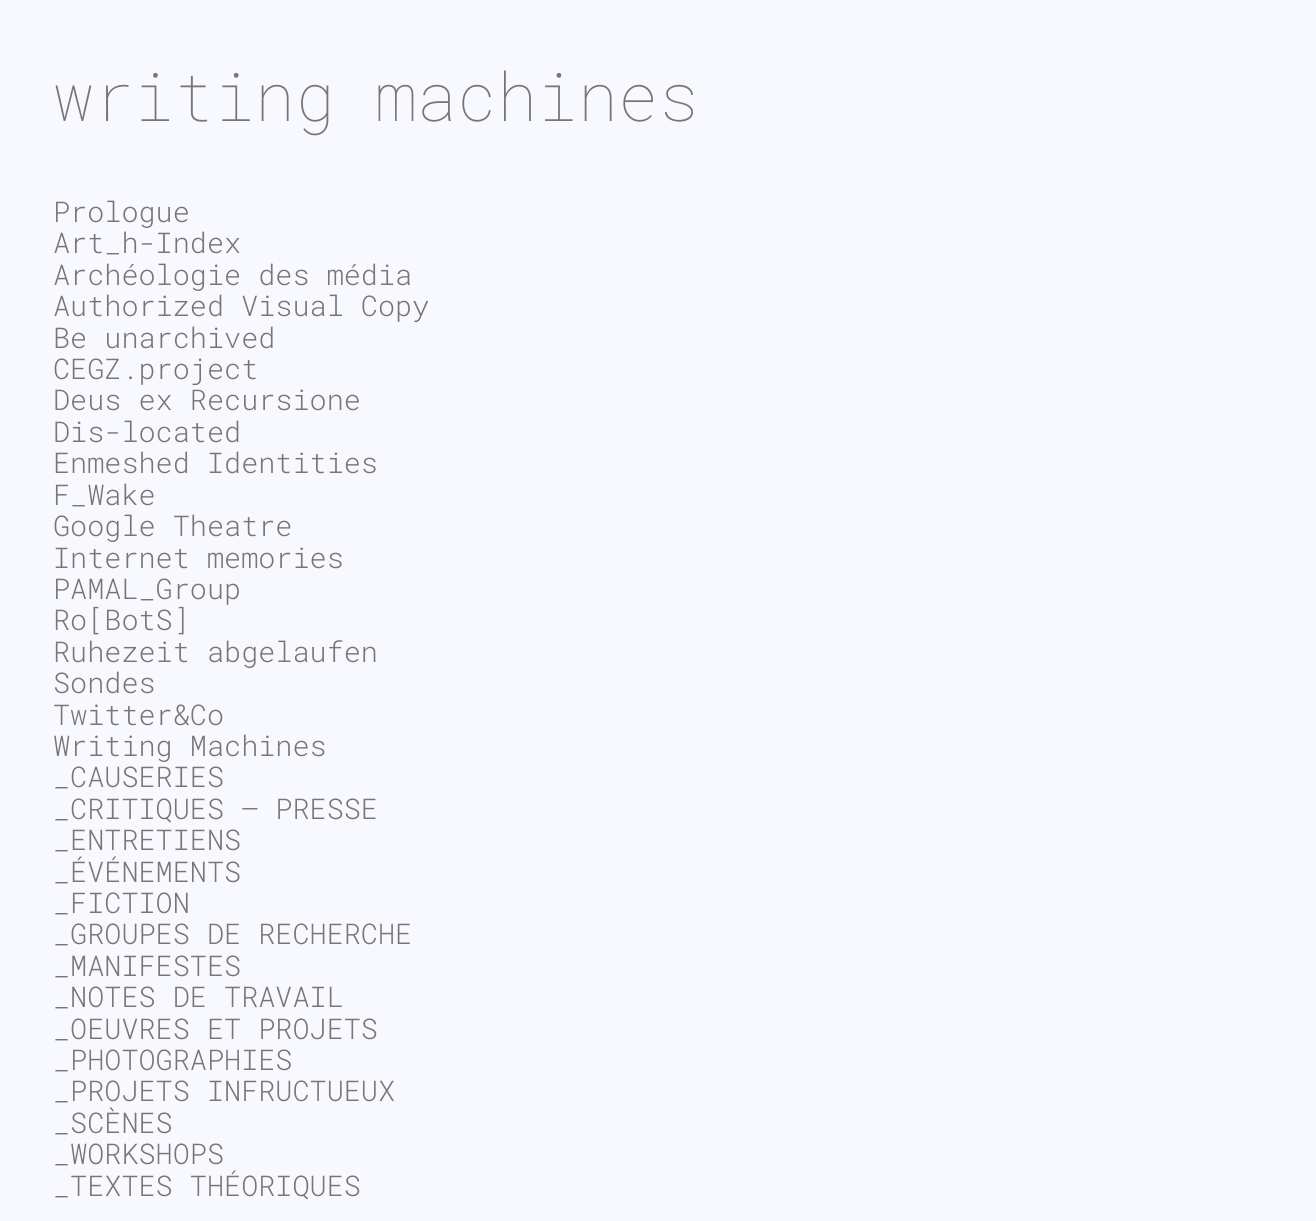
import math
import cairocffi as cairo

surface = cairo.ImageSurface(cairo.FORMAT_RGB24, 1316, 1221)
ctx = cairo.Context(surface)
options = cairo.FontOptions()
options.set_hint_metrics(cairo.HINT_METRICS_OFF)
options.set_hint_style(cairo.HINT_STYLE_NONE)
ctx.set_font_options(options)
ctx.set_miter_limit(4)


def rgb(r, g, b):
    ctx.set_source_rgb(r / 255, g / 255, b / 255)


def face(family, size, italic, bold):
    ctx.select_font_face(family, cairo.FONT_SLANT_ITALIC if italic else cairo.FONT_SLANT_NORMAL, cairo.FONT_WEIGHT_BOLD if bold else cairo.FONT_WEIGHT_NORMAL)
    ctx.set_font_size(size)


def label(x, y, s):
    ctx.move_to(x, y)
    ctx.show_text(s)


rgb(248, 248, 255)
ctx.paint()
face('Roboto Mono Thin', 67.25, 0, 0)
rgb(119, 118, 118)
label(53, 121, 'writing machines')
face('Roboto Mono Light', 28.5, 0, 0)
label(53, 222, 'Prologue')
label(53, 253, 'Art_h-Index')
label(53, 285, 'Archéologie des média')
label(53, 316, 'Authorized Visual Copy')
label(53, 348, 'Be unarchived')
label(53, 379, 'CEGZ.project')
label(53, 410, 'Deus ex Recursione')
label(53, 442, 'Dis-located')
label(53, 473, 'Enmeshed Identities')
label(53, 505, 'F_Wake')
label(53, 536, 'Google Theatre')
label(53, 568, 'Internet memories')
label(53, 599, 'PAMAL_Group')
label(53, 630, 'Ro[BotS]')
label(53, 662, 'Ruhezeit abgelaufen')
label(53, 693, 'Sondes')
label(53, 725, 'Twitter&Co')
label(53, 756, 'Writing Machines')
label(53, 787, '_CAUSERIES')
label(53, 819, '_CRITIQUES – PRESSE')
label(53, 850, '_ENTRETIENS')
label(53, 882, '_ÉVÉNEMENTS')
label(53, 913, '_FICTION')
label(53, 944, '_GROUPES DE RECHERCHE')
label(53, 976, '_MANIFESTES')
label(53, 1007, '_NOTES DE TRAVAIL')
label(53, 1039, '_OEUVRES ET PROJETS')
label(53, 1070, '_PHOTOGRAPHIES')
label(53, 1101, '_PROJETS INFRUCTUEUX')
label(53, 1133, '_SCÈNES')
label(53, 1164, '_WORKSHOPS')
label(53, 1196, '_TEXTES THÉORIQUES')
surface.write_to_png('render.png')
